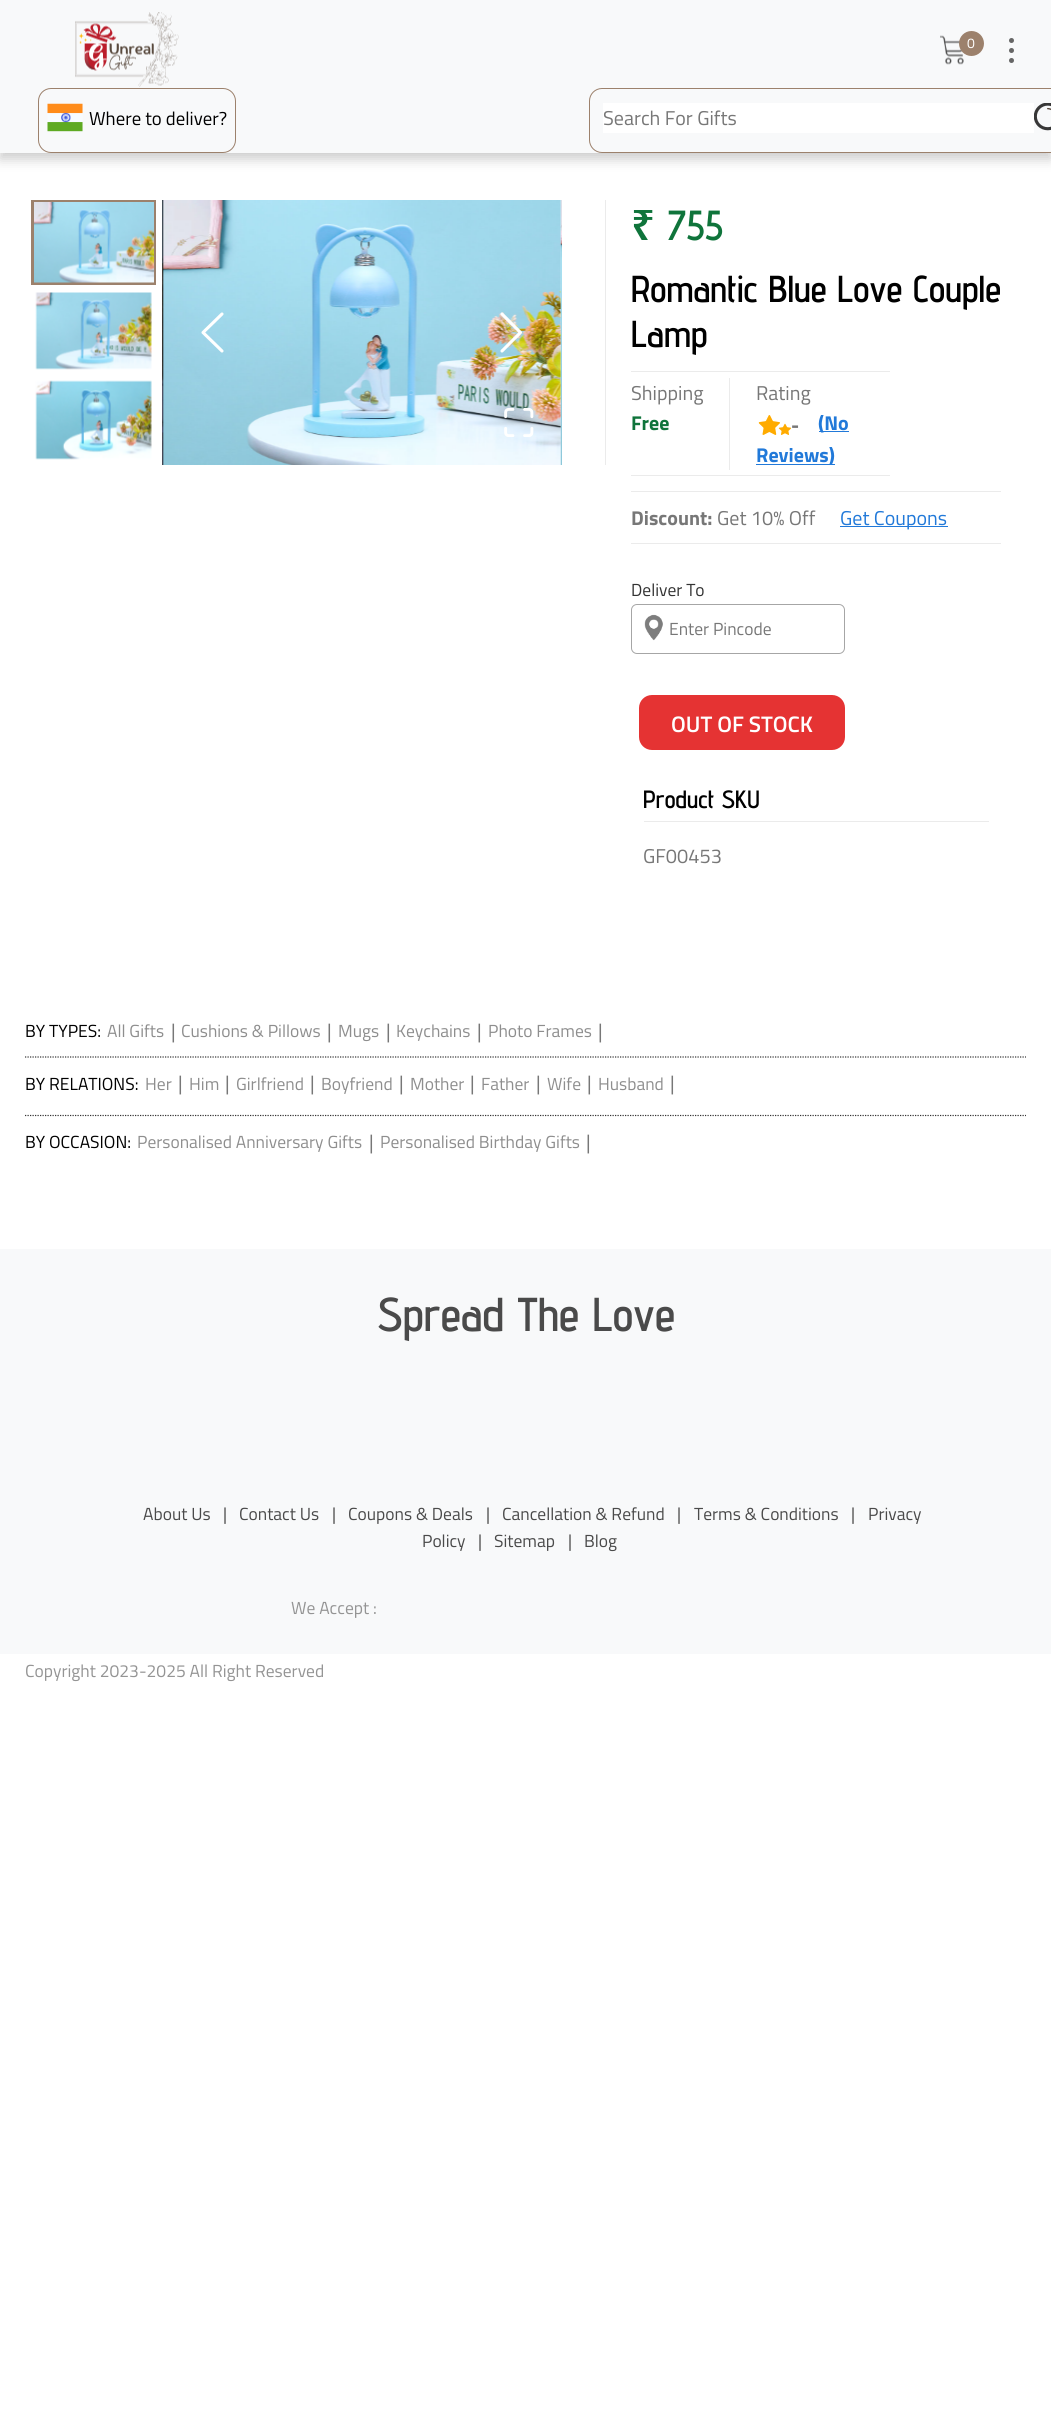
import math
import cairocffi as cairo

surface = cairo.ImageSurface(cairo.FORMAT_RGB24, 1051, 2411)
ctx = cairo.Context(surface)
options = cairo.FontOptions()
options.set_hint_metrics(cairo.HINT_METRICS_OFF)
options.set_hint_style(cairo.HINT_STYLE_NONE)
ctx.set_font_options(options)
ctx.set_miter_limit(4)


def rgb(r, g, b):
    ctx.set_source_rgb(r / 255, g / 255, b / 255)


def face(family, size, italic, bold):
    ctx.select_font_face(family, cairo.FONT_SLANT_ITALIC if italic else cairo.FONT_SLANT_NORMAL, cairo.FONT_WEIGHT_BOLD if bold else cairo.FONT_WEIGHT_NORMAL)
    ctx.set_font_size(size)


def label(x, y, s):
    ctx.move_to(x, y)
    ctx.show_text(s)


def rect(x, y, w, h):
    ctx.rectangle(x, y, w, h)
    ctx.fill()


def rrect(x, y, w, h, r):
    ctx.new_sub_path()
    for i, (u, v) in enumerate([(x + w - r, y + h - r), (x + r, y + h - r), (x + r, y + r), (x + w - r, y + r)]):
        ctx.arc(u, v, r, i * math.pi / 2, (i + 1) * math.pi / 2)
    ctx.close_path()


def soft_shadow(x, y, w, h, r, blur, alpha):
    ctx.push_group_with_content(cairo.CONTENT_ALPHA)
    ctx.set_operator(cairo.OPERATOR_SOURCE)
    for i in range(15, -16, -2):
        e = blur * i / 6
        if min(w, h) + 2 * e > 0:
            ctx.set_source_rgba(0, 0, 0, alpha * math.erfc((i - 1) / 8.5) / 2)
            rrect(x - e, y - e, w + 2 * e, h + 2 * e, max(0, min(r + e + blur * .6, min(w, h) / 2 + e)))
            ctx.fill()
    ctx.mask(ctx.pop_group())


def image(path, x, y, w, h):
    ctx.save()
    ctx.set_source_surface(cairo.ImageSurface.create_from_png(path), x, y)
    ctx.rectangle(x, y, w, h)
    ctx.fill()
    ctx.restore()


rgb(255, 255, 255)
ctx.paint()
rgb(248, 249, 250)
rect(0, 0, 1051, 153)
ctx.save()
ctx.set_fill_rule(cairo.FILL_RULE_EVEN_ODD)
ctx.new_path()
ctx.move_to(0, 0)
ctx.line_to(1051, 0)
ctx.line_to(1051, 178)
ctx.line_to(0, 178)
ctx.close_path()
ctx.move_to(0, 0)
ctx.line_to(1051, 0)
ctx.line_to(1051, 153)
ctx.line_to(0, 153)
ctx.close_path()
ctx.clip()
rgb(204, 204, 204)
soft_shadow(0, 6, 1051, 153, 0, 6, 1)
ctx.restore()
image('image0.png', 75, 12, 104, 75)
image('image1.png', 940, 35, 24, 30)
rgb(156, 129, 108)
ctx.arc(971.5, 43.5, 12.5, 0, 2 * math.pi)
ctx.fill()
face('Titillium Web', 14, 0, 0)
rgb(255, 255, 255)
label(967, 48, '0')
rgb(102, 102, 102)
ctx.new_path()
ctx.arc(1011.5, 40.5, 2.5, 0, 2 * math.pi)
ctx.fill()
ctx.arc(1011.5, 50.5, 2.5, 0, 2 * math.pi)
ctx.fill()
ctx.arc(1011.5, 60.5, 2.5, 0, 2 * math.pi)
ctx.fill()
rrect(38.5, 88.5, 197, 64, 12.5)
rgb(156, 129, 108)
ctx.set_line_width(1)
ctx.stroke()
image('image2.png', 47, 103, 36, 29)
face('Titillium Web', 18.75, 0, 0)
rgb(0, 0, 0)
label(89, 125, 'Where to deliver?')
rrect(589.5, 88.5, 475, 64, 12.5)
rgb(156, 129, 108)
ctx.stroke()
rgb(255, 255, 255)
rect(603, 103, 431, 30)
face('Titillium Web', 20, 0, 0)
rgb(119, 119, 119)
label(603, 125, 'Search For Gifts')
image('image3.png', 1034, 103, 17, 28)
rgb(235, 235, 235)
rect(605, 200, 1, 265)
ctx.rectangle(32.5, 201.5, 122, 82)
rgb(156, 129, 108)
ctx.set_line_width(3)
ctx.stroke()
image('image4.png', 34, 202, 120, 81)
image('image5.png', 35, 292, 117, 78)
image('image6.png', 35, 380, 117, 80)
image('image8.png', 163, 200, 398, 265)
image('image7.png', 162, 200, 2, 265)
image('image9.png', 560, 200, 2, 265)
ctx.new_path()
ctx.move_to(222, 351)
ctx.line_to(203, 332.5)
ctx.line_to(222, 314)
rgb(255, 255, 255)
ctx.set_line_width(3.1)
ctx.set_line_cap(cairo.LINE_CAP_ROUND)
ctx.set_line_join(cairo.LINE_JOIN_ROUND)
ctx.stroke()
ctx.new_path()
ctx.move_to(502, 351)
ctx.line_to(520.5, 332.5)
ctx.line_to(502, 314)
ctx.stroke()
image('image10.png', 504, 407, 30, 30)
face('Noto Sans SemiBold', 42, 0, 0)
rgb(15, 116, 59)
label(631, 240, '₹')
face('Advent Pro SemiBold', 42, 0, 0)
label(667, 240, '755')
face('Advent Pro SemiBold', 37.5, 0, 0)
rgb(0, 0, 0)
label(631, 302, 'Romantic Blue Love Couple')
label(631, 347, 'Lamp')
rgb(235, 235, 235)
rect(631, 371, 259, 1)
rect(631, 475, 259, 1)
rect(729, 378, 1, 92)
face('Titillium Web', 20, 0, 0)
rgb(119, 119, 119)
label(631, 400, 'Shipping')
face('Titillium Web', 20, 0, 1)
rgb(15, 116, 59)
label(631, 430, 'Free')
face('Titillium Web', 20, 0, 0)
rgb(119, 119, 119)
label(756, 400, 'Rating')
image('image11.png', 758, 415, 33, 20)
face('Titillium Web', 20, 0, 1)
label(791, 432, '-')
rgb(33, 121, 217)
rect(819, 431, 30, 1)
label(818, 430, '(No')
rect(756, 464, 79, 1)
label(756, 462, 'Reviews)')
rgb(235, 235, 235)
rect(631, 491, 370, 1)
rect(631, 543, 370, 1)
rgb(119, 119, 119)
label(631, 525, 'Discount:')
face('Titillium Web', 20, 0, 0)
label(717, 525, 'Get 10% Off')
rgb(33, 121, 217)
rect(840, 526, 108, 1)
label(840, 525, 'Get Coupons')
face('Titillium Web', 17.5, 0, 0)
rgb(51, 51, 51)
label(631, 596, 'Deliver To')
image('image12.png', 644, 614, 19, 27)
rrect(631.5, 604.5, 213, 49, 5.5)
rgb(166, 166, 166)
ctx.set_line_width(1)
ctx.set_line_cap(cairo.LINE_CAP_BUTT)
ctx.set_line_join(cairo.LINE_JOIN_MITER)
ctx.stroke()
rgb(119, 119, 119)
label(669, 635, 'Enter Pincode')
rgb(229, 51, 51)
rrect(640.5, 696.5, 203, 52, 11.5)
ctx.fill_preserve()
ctx.set_line_width(3)
ctx.stroke()
face('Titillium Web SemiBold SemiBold', 22.5, 0, 0)
rgb(255, 255, 255)
label(671, 732, 'OUT OF STOCK')
rgb(235, 235, 235)
rect(644, 821, 345, 1)
face('Advent Pro SemiBold', 25, 0, 0)
rgb(0, 0, 0)
label(643, 808, 'Product SKU')
face('Titillium Web', 20, 0, 0)
rgb(119, 119, 119)
label(643, 863, 'GF00453')
face('Titillium Web', 17.5, 0, 0)
rgb(0, 0, 0)
label(25, 1037, 'BY TYPES:')
rgb(142, 142, 142)
label(107, 1037, 'All Gifts')
face('Titillium Web', 20, 0, 0)
rgb(119, 119, 119)
label(171, 1038, '|')
face('Titillium Web', 17.5, 0, 0)
rgb(142, 142, 142)
label(181, 1037, 'Cushions & Pillows')
face('Titillium Web', 20, 0, 0)
rgb(119, 119, 119)
label(327, 1038, '|')
face('Titillium Web', 17.5, 0, 0)
rgb(142, 142, 142)
label(338, 1037, 'Mugs')
face('Titillium Web', 20, 0, 0)
rgb(119, 119, 119)
label(386, 1038, '|')
face('Titillium Web', 17.5, 0, 0)
rgb(142, 142, 142)
label(396, 1037, 'Keychains')
face('Titillium Web', 20, 0, 0)
rgb(119, 119, 119)
label(477, 1038, '|')
face('Titillium Web', 17.5, 0, 0)
rgb(142, 142, 142)
label(488, 1037, 'Photo Frames')
face('Titillium Web', 20, 0, 0)
rgb(119, 119, 119)
label(598, 1038, '|')
ctx.new_path()
ctx.move_to(25, 1057)
ctx.line_to(1026, 1057)
rgb(51, 51, 51)
ctx.set_line_width(1.2)
ctx.set_dash([1.25, 1.25])
ctx.stroke()
face('Titillium Web', 17.5, 0, 0)
rgb(0, 0, 0)
label(25, 1090, 'BY RELATIONS:')
rgb(142, 142, 142)
label(145, 1090, 'Her')
face('Titillium Web', 20, 0, 0)
rgb(119, 119, 119)
label(178, 1090, '|')
face('Titillium Web', 17.5, 0, 0)
rgb(142, 142, 142)
label(189, 1090, 'Him')
face('Titillium Web', 20, 0, 0)
rgb(119, 119, 119)
label(225, 1090, '|')
face('Titillium Web', 17.5, 0, 0)
rgb(142, 142, 142)
label(236, 1090, 'Girlfriend')
face('Titillium Web', 20, 0, 0)
rgb(119, 119, 119)
label(310, 1090, '|')
face('Titillium Web', 17.5, 0, 0)
rgb(142, 142, 142)
label(321, 1090, 'Boyfriend')
face('Titillium Web', 20, 0, 0)
rgb(119, 119, 119)
label(399, 1090, '|')
face('Titillium Web', 17.5, 0, 0)
rgb(142, 142, 142)
label(410, 1090, 'Mother')
face('Titillium Web', 20, 0, 0)
rgb(119, 119, 119)
label(470, 1090, '|')
face('Titillium Web', 17.5, 0, 0)
rgb(142, 142, 142)
label(481, 1090, 'Father')
face('Titillium Web', 20, 0, 0)
rgb(119, 119, 119)
label(536, 1090, '|')
face('Titillium Web', 17.5, 0, 0)
rgb(142, 142, 142)
label(547, 1090, 'Wife')
face('Titillium Web', 20, 0, 0)
rgb(119, 119, 119)
label(587, 1090, '|')
face('Titillium Web', 17.5, 0, 0)
rgb(142, 142, 142)
label(598, 1090, 'Husband')
face('Titillium Web', 20, 0, 0)
rgb(119, 119, 119)
label(670, 1090, '|')
ctx.new_path()
ctx.move_to(25, 1115.5)
ctx.line_to(1026, 1115.5)
rgb(51, 51, 51)
ctx.stroke()
face('Titillium Web', 17.5, 0, 0)
rgb(0, 0, 0)
label(25, 1148, 'BY OCCASION:')
rgb(142, 142, 142)
label(137, 1148, 'Personalised Anniversary Gifts')
face('Titillium Web', 20, 0, 0)
rgb(119, 119, 119)
label(369, 1149, '|')
face('Titillium Web', 17.5, 0, 0)
rgb(142, 142, 142)
label(380, 1148, 'Personalised Birthday Gifts')
face('Titillium Web', 20, 0, 0)
rgb(119, 119, 119)
label(586, 1149, '|')
rgb(248, 249, 250)
rect(0, 1249, 1051, 405)
face('Advent Pro SemiBold', 47.5, 0, 0)
rgb(74, 74, 74)
label(377, 1331, 'Spread The Love')
face('Titillium Web', 17.5, 0, 0)
label(143, 1520, 'About Us')
label(223, 1520, '|')
label(239, 1520, 'Contact Us')
label(332, 1520, '|')
label(348, 1520, 'Coupons & Deals')
label(486, 1520, '|')
label(502, 1520, 'Cancellation & Refund')
label(677, 1520, '|')
label(694, 1520, 'Terms & Conditions')
label(851, 1520, '|')
label(868, 1520, 'Privacy')
label(422, 1547, 'Policy')
label(478, 1547, '|')
label(494, 1547, 'Sitemap')
label(568, 1547, '|')
label(584, 1547, 'Blog')
rgb(148, 148, 148)
label(291, 1614, 'We Accept :')
label(25, 1677, 'Copyright 2023-2025 All Right Reserved')
surface.write_to_png('render.png')
